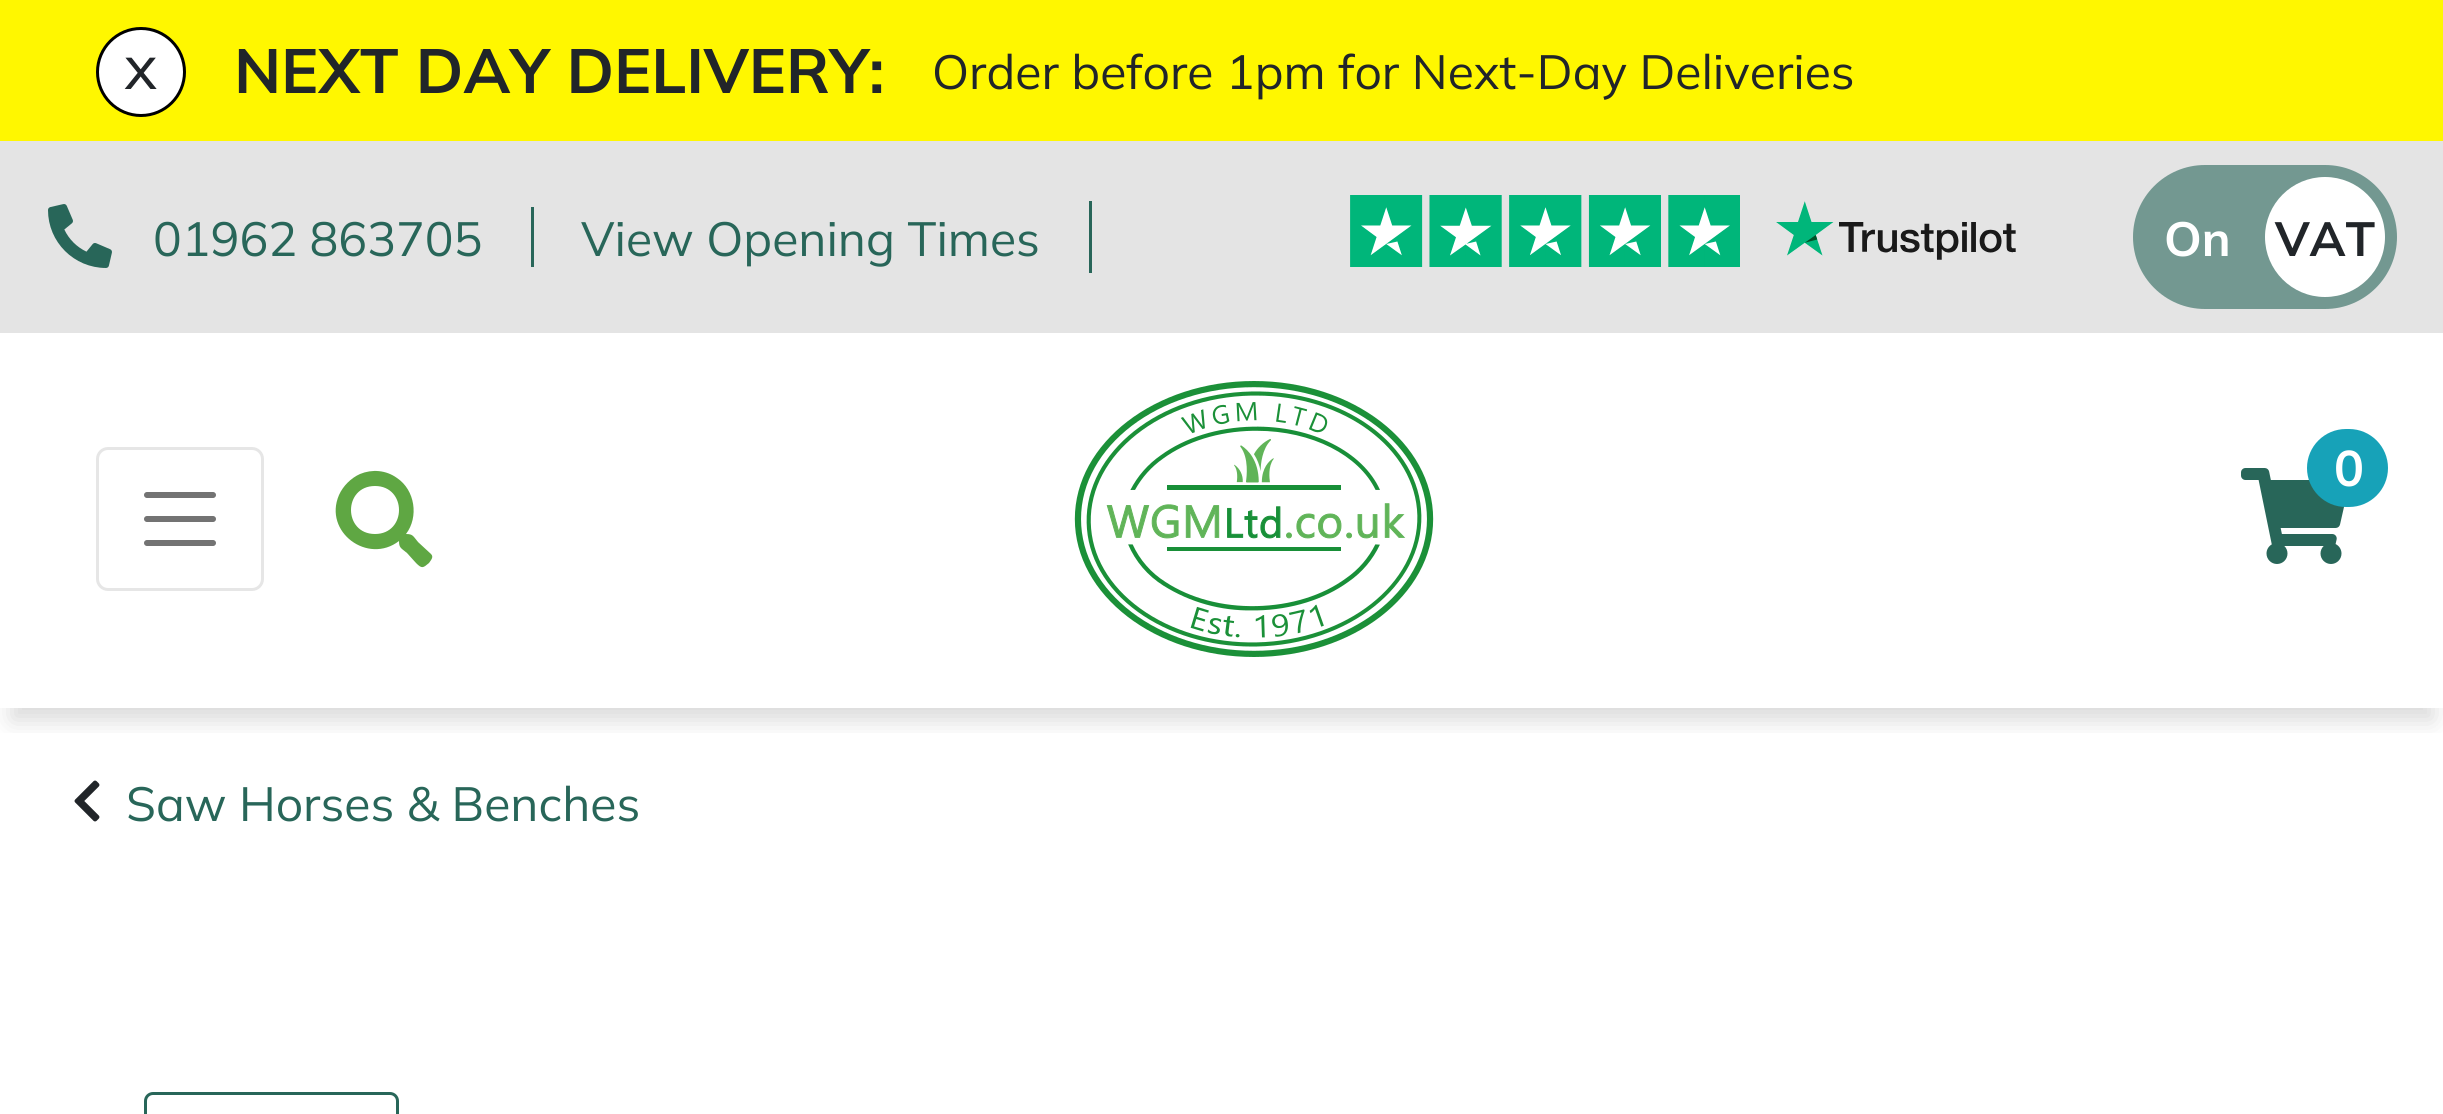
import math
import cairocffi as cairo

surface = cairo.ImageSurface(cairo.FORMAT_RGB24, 2443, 1114)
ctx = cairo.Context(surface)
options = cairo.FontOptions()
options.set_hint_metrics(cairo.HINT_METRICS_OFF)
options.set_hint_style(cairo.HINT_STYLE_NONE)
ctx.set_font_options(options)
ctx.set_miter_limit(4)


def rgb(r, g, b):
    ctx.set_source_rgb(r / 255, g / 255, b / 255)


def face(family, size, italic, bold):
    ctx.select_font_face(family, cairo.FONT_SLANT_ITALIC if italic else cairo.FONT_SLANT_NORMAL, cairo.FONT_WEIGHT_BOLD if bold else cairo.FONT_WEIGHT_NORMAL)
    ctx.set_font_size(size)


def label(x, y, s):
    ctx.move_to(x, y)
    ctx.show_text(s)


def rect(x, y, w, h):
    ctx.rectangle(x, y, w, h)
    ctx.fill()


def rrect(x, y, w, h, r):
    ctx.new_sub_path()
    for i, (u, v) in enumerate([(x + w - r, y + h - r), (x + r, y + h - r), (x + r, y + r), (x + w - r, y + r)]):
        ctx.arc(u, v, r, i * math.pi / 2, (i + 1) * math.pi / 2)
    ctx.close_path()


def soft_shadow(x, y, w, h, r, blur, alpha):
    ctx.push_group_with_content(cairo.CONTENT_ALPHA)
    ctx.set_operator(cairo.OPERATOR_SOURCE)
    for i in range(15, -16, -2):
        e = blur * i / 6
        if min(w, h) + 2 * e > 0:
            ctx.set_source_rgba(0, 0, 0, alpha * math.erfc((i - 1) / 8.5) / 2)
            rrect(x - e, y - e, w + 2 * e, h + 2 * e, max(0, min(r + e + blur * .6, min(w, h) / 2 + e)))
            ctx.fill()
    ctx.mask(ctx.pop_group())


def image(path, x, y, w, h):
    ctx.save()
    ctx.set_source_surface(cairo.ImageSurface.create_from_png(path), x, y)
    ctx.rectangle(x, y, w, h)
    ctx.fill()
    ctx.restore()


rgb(255, 255, 255)
ctx.paint()
rgb(255, 247, 0)
rect(0, 0, 2443, 141)
rgb(255, 255, 255)
ctx.arc(141, 72, 43.5, 0, 2 * math.pi)
ctx.fill_preserve()
rgb(0, 0, 0)
ctx.set_line_width(3)
ctx.stroke()
face('Mulish', 62.4, 0, 0)
rgb(33, 37, 41)
label(124, 89, 'x')
face('Mulish', 62.4, 0, 1)
label(234, 93, 'NEXT DAY DELIVERY:')
face('Mulish', 48, 0, 0)
label(932, 89, 'Order before 1pm for Next-Day Deliveries')
rgb(228, 228, 228)
rect(0, 141, 2443, 192)
image('image0.png', 48, 204, 64, 64)
rgb(40, 102, 89)
label(153, 256, '01962 863705')
rect(531, 207, 3, 60)
rect(1089, 201, 3, 72)
label(581, 256, 'View Opening Times')
image('image1.png', 1350, 195, 666, 72)
rgb(115, 152, 145)
rrect(2133, 165, 264, 144, 72)
ctx.fill()
face('Mulish', 48, 0, 1)
rgb(255, 255, 255)
label(2164, 256, 'On')
ctx.new_path()
ctx.arc(2325, 237, 60, 0, 2 * math.pi)
ctx.fill()
rgb(33, 37, 41)
label(2275, 256, 'VAT')
ctx.save()
ctx.rectangle(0, 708, 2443, 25)
ctx.clip()
rgb(0, 0, 0)
soft_shadow(12, 369, 2421, 351, 0, 12, 0.15)
ctx.restore()
rrect(97.5, 448.5, 165, 141, 10.5)
rgb(230, 230, 230)
ctx.stroke()
ctx.new_path()
ctx.move_to(147, 495)
ctx.line_to(213, 495)
ctx.move_to(147, 519)
ctx.line_to(213, 519)
ctx.move_to(147, 543)
ctx.line_to(213, 543)
rgb(115, 115, 115)
ctx.set_line_width(6)
ctx.set_line_cap(cairo.LINE_CAP_ROUND)
ctx.stroke()
rgb(95, 167, 67)
ctx.new_path()
ctx.move_to(431, 554)
ctx.line_to(418, 542)
ctx.curve_to(413, 536, 413, 534, 406, 534)
ctx.curve_to(419, 517, 415, 490, 397, 478)
ctx.curve_to(386, 470, 372, 469, 360, 474)
ctx.curve_to(351, 478, 343, 486, 339, 495)
ctx.curve_to(323, 532, 368, 565, 399, 541)
ctx.curve_to(399, 548, 401, 548, 407, 553)
ctx.line_to(416, 563)
ctx.curve_to(422, 569, 423, 568, 429, 563)
ctx.curve_to(431, 560, 434, 557, 431, 554)
ctx.close_path()
ctx.move_to(375, 534)
ctx.curve_to(343, 534, 343, 486, 375, 486)
ctx.curve_to(407, 486, 407, 534, 375, 534)
ctx.close_path()
ctx.fill()
image('image2.png', 1074, 381, 360, 276)
image('image3.png', 2241, 468, 104, 96)
rgb(23, 162, 184)
rrect(2307, 429, 81, 78, 39)
ctx.fill()
face('Mulish', 50, 0, 1)
rgb(255, 255, 255)
label(2334, 486, '0')
image('image4.png', 74, 780, 26, 42)
face('Mulish', 48, 0, 0)
rgb(40, 102, 89)
label(126, 821, 'Saw Horses & Benches')
rrect(145.5, 1093.5, 252, 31, 7.5)
ctx.set_line_width(3)
ctx.set_line_cap(cairo.LINE_CAP_BUTT)
ctx.stroke()
surface.write_to_png('render.png')
